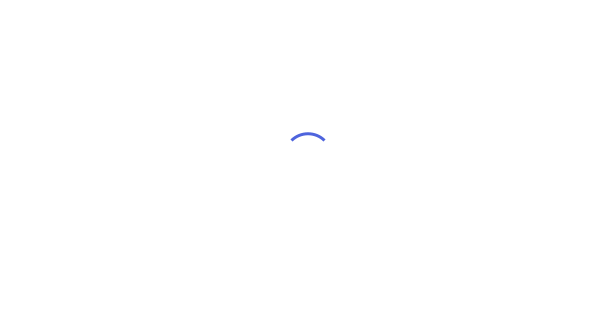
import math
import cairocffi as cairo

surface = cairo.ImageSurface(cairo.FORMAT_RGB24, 616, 313)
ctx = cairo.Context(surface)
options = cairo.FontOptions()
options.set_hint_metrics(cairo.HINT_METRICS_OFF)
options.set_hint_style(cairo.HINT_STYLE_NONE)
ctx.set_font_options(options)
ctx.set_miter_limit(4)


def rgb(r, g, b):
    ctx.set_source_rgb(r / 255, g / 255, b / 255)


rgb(255, 255, 255)
ctx.paint()
ctx.new_path()
ctx.move_to(291.5, 140.5)
ctx.curve_to(300.5, 131.5, 315.5, 131.5, 324.5, 140.5)
rgb(78, 100, 221)
ctx.set_line_width(3)
ctx.stroke()
surface.write_to_png('render.png')
